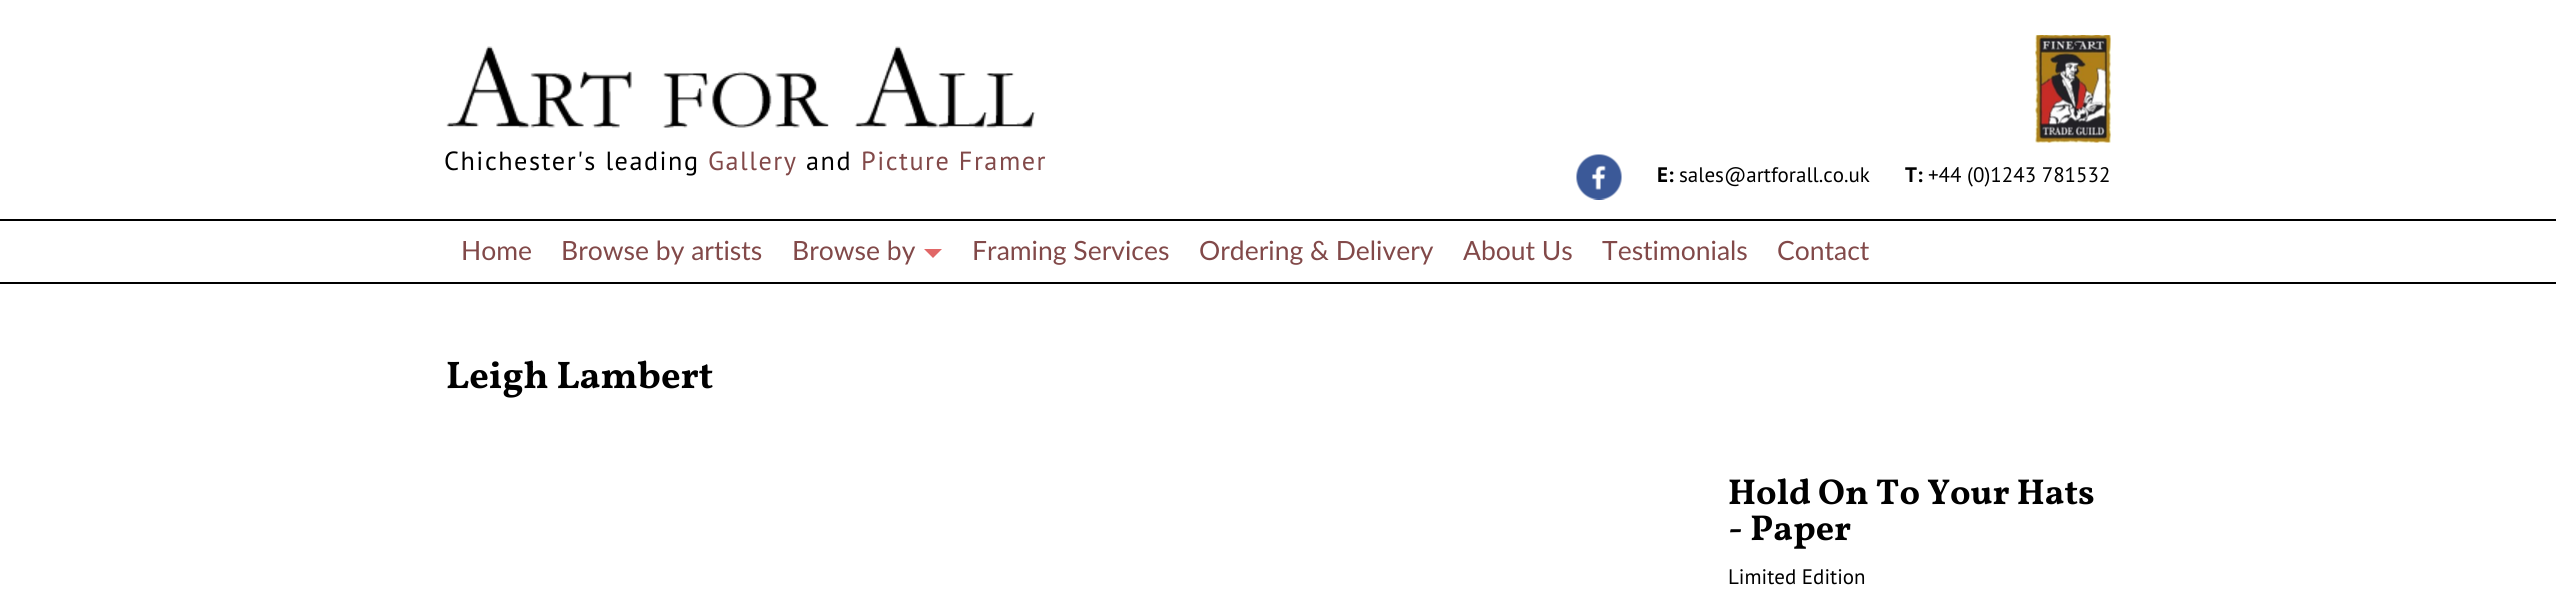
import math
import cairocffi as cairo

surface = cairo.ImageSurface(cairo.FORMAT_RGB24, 2556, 608)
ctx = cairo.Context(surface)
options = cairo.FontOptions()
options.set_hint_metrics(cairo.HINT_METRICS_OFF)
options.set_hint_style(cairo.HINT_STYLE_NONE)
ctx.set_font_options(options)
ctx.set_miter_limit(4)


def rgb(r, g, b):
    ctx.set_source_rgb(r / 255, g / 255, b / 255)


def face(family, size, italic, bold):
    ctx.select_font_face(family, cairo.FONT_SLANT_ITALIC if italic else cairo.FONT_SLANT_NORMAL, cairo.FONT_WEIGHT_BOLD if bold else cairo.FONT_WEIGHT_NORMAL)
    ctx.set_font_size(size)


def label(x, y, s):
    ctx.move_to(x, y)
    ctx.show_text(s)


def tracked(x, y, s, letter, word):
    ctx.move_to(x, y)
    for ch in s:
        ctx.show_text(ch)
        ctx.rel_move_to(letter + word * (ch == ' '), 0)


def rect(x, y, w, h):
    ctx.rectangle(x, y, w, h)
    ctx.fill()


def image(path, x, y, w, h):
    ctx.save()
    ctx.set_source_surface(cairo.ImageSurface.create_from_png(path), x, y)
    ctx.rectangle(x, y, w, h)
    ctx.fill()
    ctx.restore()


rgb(255, 255, 255)
ctx.paint()
image('image0.png', 446, 46, 590, 82)
face('PT Sans', 26.25, 0, 0)
rgb(0, 0, 0)
tracked(444, 170, 'Chichester\'s leading', 1.5, 0)
rgb(130, 73, 73)
tracked(708, 170, 'Gallery', 1.5, 0)
rgb(0, 0, 0)
tracked(806, 170, 'and', 1.5, 0)
rgb(130, 73, 73)
tracked(861, 170, 'Picture Framer', 1.5, 0)
image('image1.png', 2035, 35, 76, 108)
image('image2.png', 1576, 154, 46, 46)
face('PT Sans', 21, 0, 1)
rgb(0, 0, 0)
label(1657, 182, 'E:')
face('PT Sans', 21, 0, 0)
label(1679, 182, 'sales@artforall.co.uk')
face('PT Sans', 21, 0, 1)
label(1905, 182, 'T:')
face('PT Sans', 21, 0, 0)
label(1928, 182, '+44 (0)1243 781532')
rect(0, 219, 2556, 2)
rect(0, 282, 2556, 2)
face('Lato', 26.5, 0, 0)
rgb(130, 73, 73)
label(461, 260, 'Home')
label(561, 260, 'Browse by artists')
label(792, 260, 'Browse by')
rgb(225, 103, 103)
ctx.new_path()
ctx.move_to(924, 249)
ctx.line_to(942, 249)
ctx.line_to(933, 258)
ctx.close_path()
ctx.fill()
rgb(130, 73, 73)
label(972, 260, 'Framing Services')
label(1199, 260, 'Ordering & Delivery')
label(1463, 260, 'About Us')
label(1602, 260, 'Testimonials')
label(1777, 260, 'Contact')
face('Vollkorn', 38.5, 0, 1)
rgb(0, 0, 0)
label(446, 388, 'Leigh Lambert')
face('Vollkorn', 36, 0, 1)
label(1728, 504, 'Hold On To Your Hats')
label(1728, 540, '- Paper')
face('PT Sans', 21, 0, 0)
label(1728, 584, 'Limited Edition')
surface.write_to_png('render.png')
